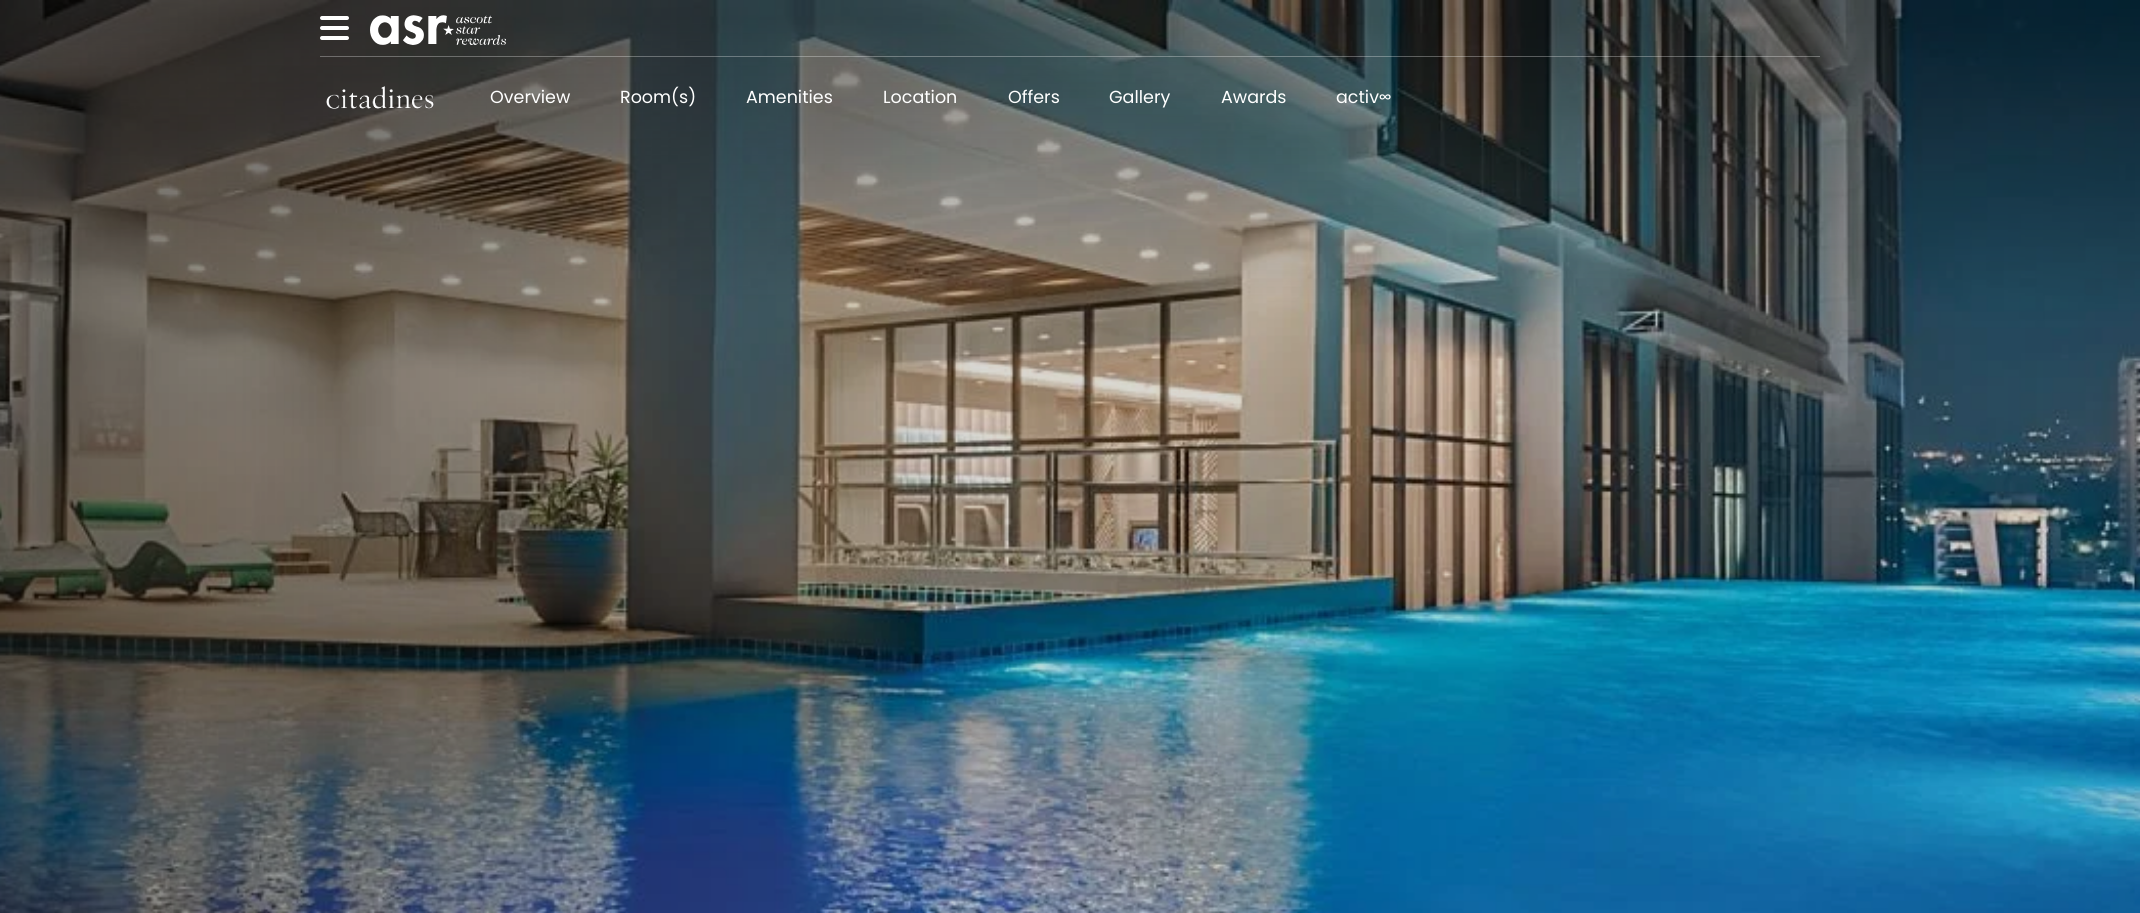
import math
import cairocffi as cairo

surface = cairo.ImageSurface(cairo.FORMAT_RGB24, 2140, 913)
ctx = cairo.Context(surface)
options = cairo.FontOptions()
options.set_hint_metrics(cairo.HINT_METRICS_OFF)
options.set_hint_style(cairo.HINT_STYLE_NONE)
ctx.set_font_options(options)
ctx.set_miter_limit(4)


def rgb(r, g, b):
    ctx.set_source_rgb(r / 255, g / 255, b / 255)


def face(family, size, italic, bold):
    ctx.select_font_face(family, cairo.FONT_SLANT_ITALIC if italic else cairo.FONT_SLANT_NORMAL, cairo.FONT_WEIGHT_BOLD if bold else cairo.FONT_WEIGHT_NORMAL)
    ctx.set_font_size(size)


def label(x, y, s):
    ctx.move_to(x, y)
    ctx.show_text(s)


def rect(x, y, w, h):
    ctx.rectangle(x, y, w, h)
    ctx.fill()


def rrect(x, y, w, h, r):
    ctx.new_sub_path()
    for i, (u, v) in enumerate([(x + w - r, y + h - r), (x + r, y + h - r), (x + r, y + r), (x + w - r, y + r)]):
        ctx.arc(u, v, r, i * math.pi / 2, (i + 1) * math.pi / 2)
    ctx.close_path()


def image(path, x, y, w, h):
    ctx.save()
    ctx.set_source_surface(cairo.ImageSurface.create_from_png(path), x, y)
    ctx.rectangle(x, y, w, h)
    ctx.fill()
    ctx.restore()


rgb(255, 255, 255)
ctx.paint()
image('image0.png', 0, 0, 2140, 913)
rgb(255, 255, 255)
rrect(320, 16, 29, 4, 2)
ctx.fill()
rrect(320, 26, 29, 4, 2)
ctx.fill()
rrect(320, 36, 29, 4, 2)
ctx.fill()
image('image1.png', 370, 15, 136, 30)
ctx.set_source_rgba(1, 1, 1, 0.3)
rect(320, 56, 1500, 1)
image('image2.png', 326, 86, 108, 23)
face('Poppins', 17.5, 0, 0)
rgb(255, 255, 255)
label(490, 103, 'Overview')
label(620, 103, 'Room(s)')
label(746, 103, 'Amenities')
label(883, 103, 'Location')
label(1008, 103, 'Offers')
label(1109, 103, 'Gallery')
label(1221, 103, 'Awards')
label(1336, 103, 'activ∞')
surface.write_to_png('render.png')
